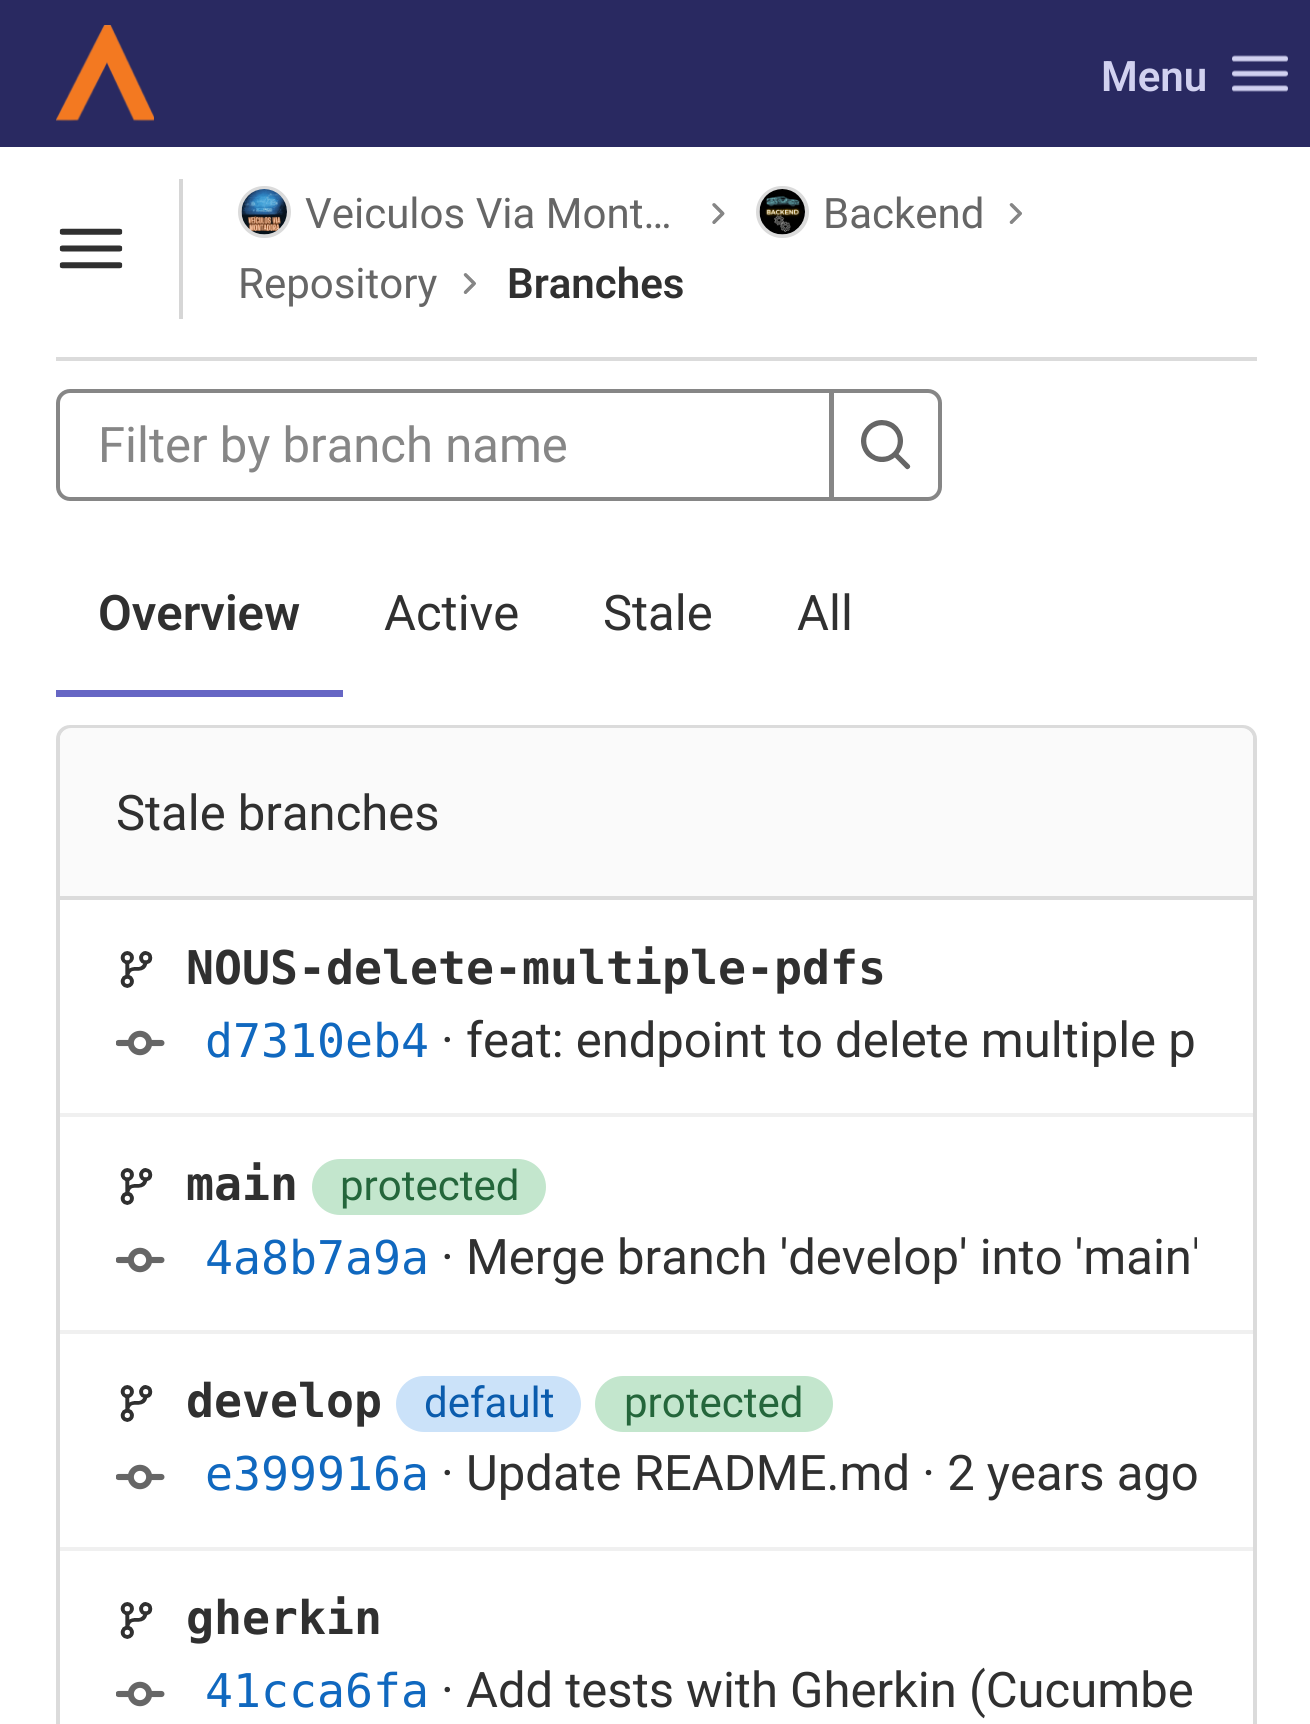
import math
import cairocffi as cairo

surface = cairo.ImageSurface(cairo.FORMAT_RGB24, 1310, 1724)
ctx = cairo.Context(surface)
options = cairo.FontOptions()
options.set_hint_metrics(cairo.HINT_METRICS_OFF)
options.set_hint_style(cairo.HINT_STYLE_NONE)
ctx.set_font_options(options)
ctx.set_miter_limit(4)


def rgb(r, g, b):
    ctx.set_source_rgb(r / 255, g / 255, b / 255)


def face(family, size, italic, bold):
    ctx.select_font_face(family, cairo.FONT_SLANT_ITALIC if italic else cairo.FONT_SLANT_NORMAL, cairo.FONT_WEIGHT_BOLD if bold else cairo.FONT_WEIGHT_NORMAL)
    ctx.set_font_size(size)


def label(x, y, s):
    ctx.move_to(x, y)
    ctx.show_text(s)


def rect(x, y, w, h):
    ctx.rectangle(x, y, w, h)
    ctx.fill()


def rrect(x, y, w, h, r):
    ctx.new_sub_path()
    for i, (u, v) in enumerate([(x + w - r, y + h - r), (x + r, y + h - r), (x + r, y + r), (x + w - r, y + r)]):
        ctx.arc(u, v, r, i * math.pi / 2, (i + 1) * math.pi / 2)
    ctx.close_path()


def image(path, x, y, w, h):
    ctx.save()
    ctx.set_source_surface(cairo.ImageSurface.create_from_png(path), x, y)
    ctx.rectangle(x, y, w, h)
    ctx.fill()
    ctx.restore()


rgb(255, 255, 255)
ctx.paint()
rgb(41, 41, 97)
rect(0, 0, 1310, 147)
image('image0.png', 56, 25, 98, 97)
face('Roboto SemiBold', 42, 0, 0)
rgb(209, 209, 240)
label(1101, 91, 'Menu')
image('image1.png', 1232, 55, 56, 37)
rgb(219, 219, 219)
rect(56, 357, 1201, 4)
image('image2.png', 59, 228, 64, 41)
rgb(214, 214, 214)
rect(179, 179, 4, 140)
rrect(240, 188, 49, 48, 24)
rgb(219, 219, 219)
ctx.set_line_width(4)
ctx.stroke()
image('image3.png', 241, 189, 46, 46)
face('Roboto', 42, 0, 0)
rgb(102, 102, 102)
label(305, 228, 'Veiculos Via Mont…')
image('image4.png', 712, 203, 13, 21)
rrect(758, 188, 49, 48, 24)
rgb(219, 219, 219)
ctx.stroke()
image('image5.png', 759, 189, 46, 46)
rgb(102, 102, 102)
label(823, 228, 'Backend')
image('image6.png', 1009, 203, 13, 21)
label(238, 298, 'Repository')
image('image7.png', 463, 273, 13, 21)
face('Roboto SemiBold', 42, 0, 0)
rgb(48, 48, 48)
label(507, 298, 'Branches')
ctx.new_path()
ctx.move_to(70, 391)
ctx.line_to(831, 391)
ctx.line_to(831, 499)
ctx.line_to(70, 499)
ctx.curve_to(63.5, 499, 58, 493.5, 58, 487)
ctx.line_to(58, 403)
ctx.curve_to(58, 396.5, 63.5, 391, 70, 391)
ctx.close_path()
rgb(134, 134, 134)
ctx.stroke()
face('Roboto', 49, 0, 0)
label(98, 462, 'Filter by branch name')
rgb(255, 255, 255)
ctx.new_path()
ctx.move_to(832, 391)
ctx.line_to(928, 391)
ctx.curve_to(934.5, 391, 940, 396.5, 940, 403)
ctx.line_to(940, 487)
ctx.curve_to(940, 493.5, 934.5, 499, 928, 499)
ctx.line_to(832, 499)
ctx.close_path()
ctx.fill_preserve()
rgb(134, 134, 134)
ctx.stroke()
image('image8.png', 861, 420, 50, 50)
rgb(102, 102, 196)
rect(56, 690, 287, 7)
face('Roboto SemiBold', 49, 0, 0)
rgb(48, 48, 48)
label(98, 630, 'Overview')
face('Roboto', 49, 0, 0)
label(384, 630, 'Active')
label(603, 630, 'Stale')
label(797, 630, 'All')
rrect(58, 727, 1197, 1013, 12)
rgb(219, 219, 219)
ctx.stroke()
rgb(250, 250, 250)
ctx.new_path()
ctx.move_to(71, 728)
ctx.line_to(1242, 728)
ctx.curve_to(1248, 728, 1253, 733, 1253, 739)
ctx.line_to(1253, 900)
ctx.line_to(60, 900)
ctx.line_to(60, 739)
ctx.curve_to(60, 733, 65, 728, 71, 728)
ctx.close_path()
ctx.fill()
rgb(219, 219, 219)
rect(60, 896, 1193, 4)
rgb(48, 48, 48)
label(116, 830, 'Stale branches')
rgb(240, 240, 240)
rect(60, 1113, 1193, 4)
image('image9.png', 120, 951, 33, 37)
face('DejaVu Sans Mono', 46.5, 0, 1)
rgb(48, 48, 48)
label(186, 984, 'NOUS-delete-multiple-pdfs')
image('image10.png', 116, 1030, 49, 26)
face('DejaVu Sans Mono', 46.5, 0, 0)
rgb(16, 104, 191)
label(205, 1057, 'd7310eb4')
face('Roboto', 49, 0, 0)
rgb(48, 48, 48)
label(441, 1057, '· feat: endpoint to delete multiple p')
rgb(240, 240, 240)
rect(60, 1330, 1193, 4)
image('image11.png', 120, 1168, 33, 37)
face('DejaVu Sans Mono', 46.5, 0, 1)
rgb(48, 48, 48)
label(186, 1200, 'main')
rgb(195, 230, 205)
rrect(312, 1159, 234, 56, 28)
ctx.fill()
face('Roboto', 42, 0, 0)
rgb(36, 102, 59)
label(340, 1200, 'protected')
image('image10.png', 116, 1247, 49, 26)
face('DejaVu Sans Mono', 46.5, 0, 0)
rgb(16, 104, 191)
label(205, 1274, '4a8b7a9a')
face('Roboto', 49, 0, 0)
rgb(48, 48, 48)
label(441, 1274, '·')
ctx.save()
ctx.rectangle(116, 1222, 1081, 73)
ctx.clip()
label(466, 1274, 'Merge branch \'develop\' into \'main\'')
ctx.restore()
rgb(240, 240, 240)
rect(60, 1547, 1193, 4)
image('image9.png', 120, 1385, 33, 37)
face('DejaVu Sans Mono', 46.5, 0, 1)
rgb(48, 48, 48)
label(186, 1417, 'develop')
rgb(203, 226, 249)
rrect(396, 1376, 185, 56, 28)
ctx.fill()
face('Roboto', 42, 0, 0)
rgb(11, 92, 173)
label(424, 1417, 'default')
rgb(195, 230, 205)
rrect(595, 1376, 238, 56, 28)
ctx.fill()
rgb(36, 102, 59)
label(624, 1417, 'protected')
image('image10.png', 116, 1464, 49, 26)
face('DejaVu Sans Mono', 46.5, 0, 0)
rgb(16, 104, 191)
label(205, 1490, 'e399916a')
face('Roboto', 49, 0, 0)
rgb(48, 48, 48)
label(441, 1490, '· Update README.md · 2 years ago')
image('image9.png', 120, 1602, 33, 37)
face('DejaVu Sans Mono', 46.5, 0, 1)
label(186, 1634, 'gherkin')
image('image10.png', 116, 1681, 49, 26)
face('DejaVu Sans Mono', 46.5, 0, 0)
rgb(16, 104, 191)
label(205, 1707, '41cca6fa')
face('Roboto', 49, 0, 0)
rgb(48, 48, 48)
label(441, 1707, '· Add tests with Gherkin (Cucumbe')
surface.write_to_png('render.png')
